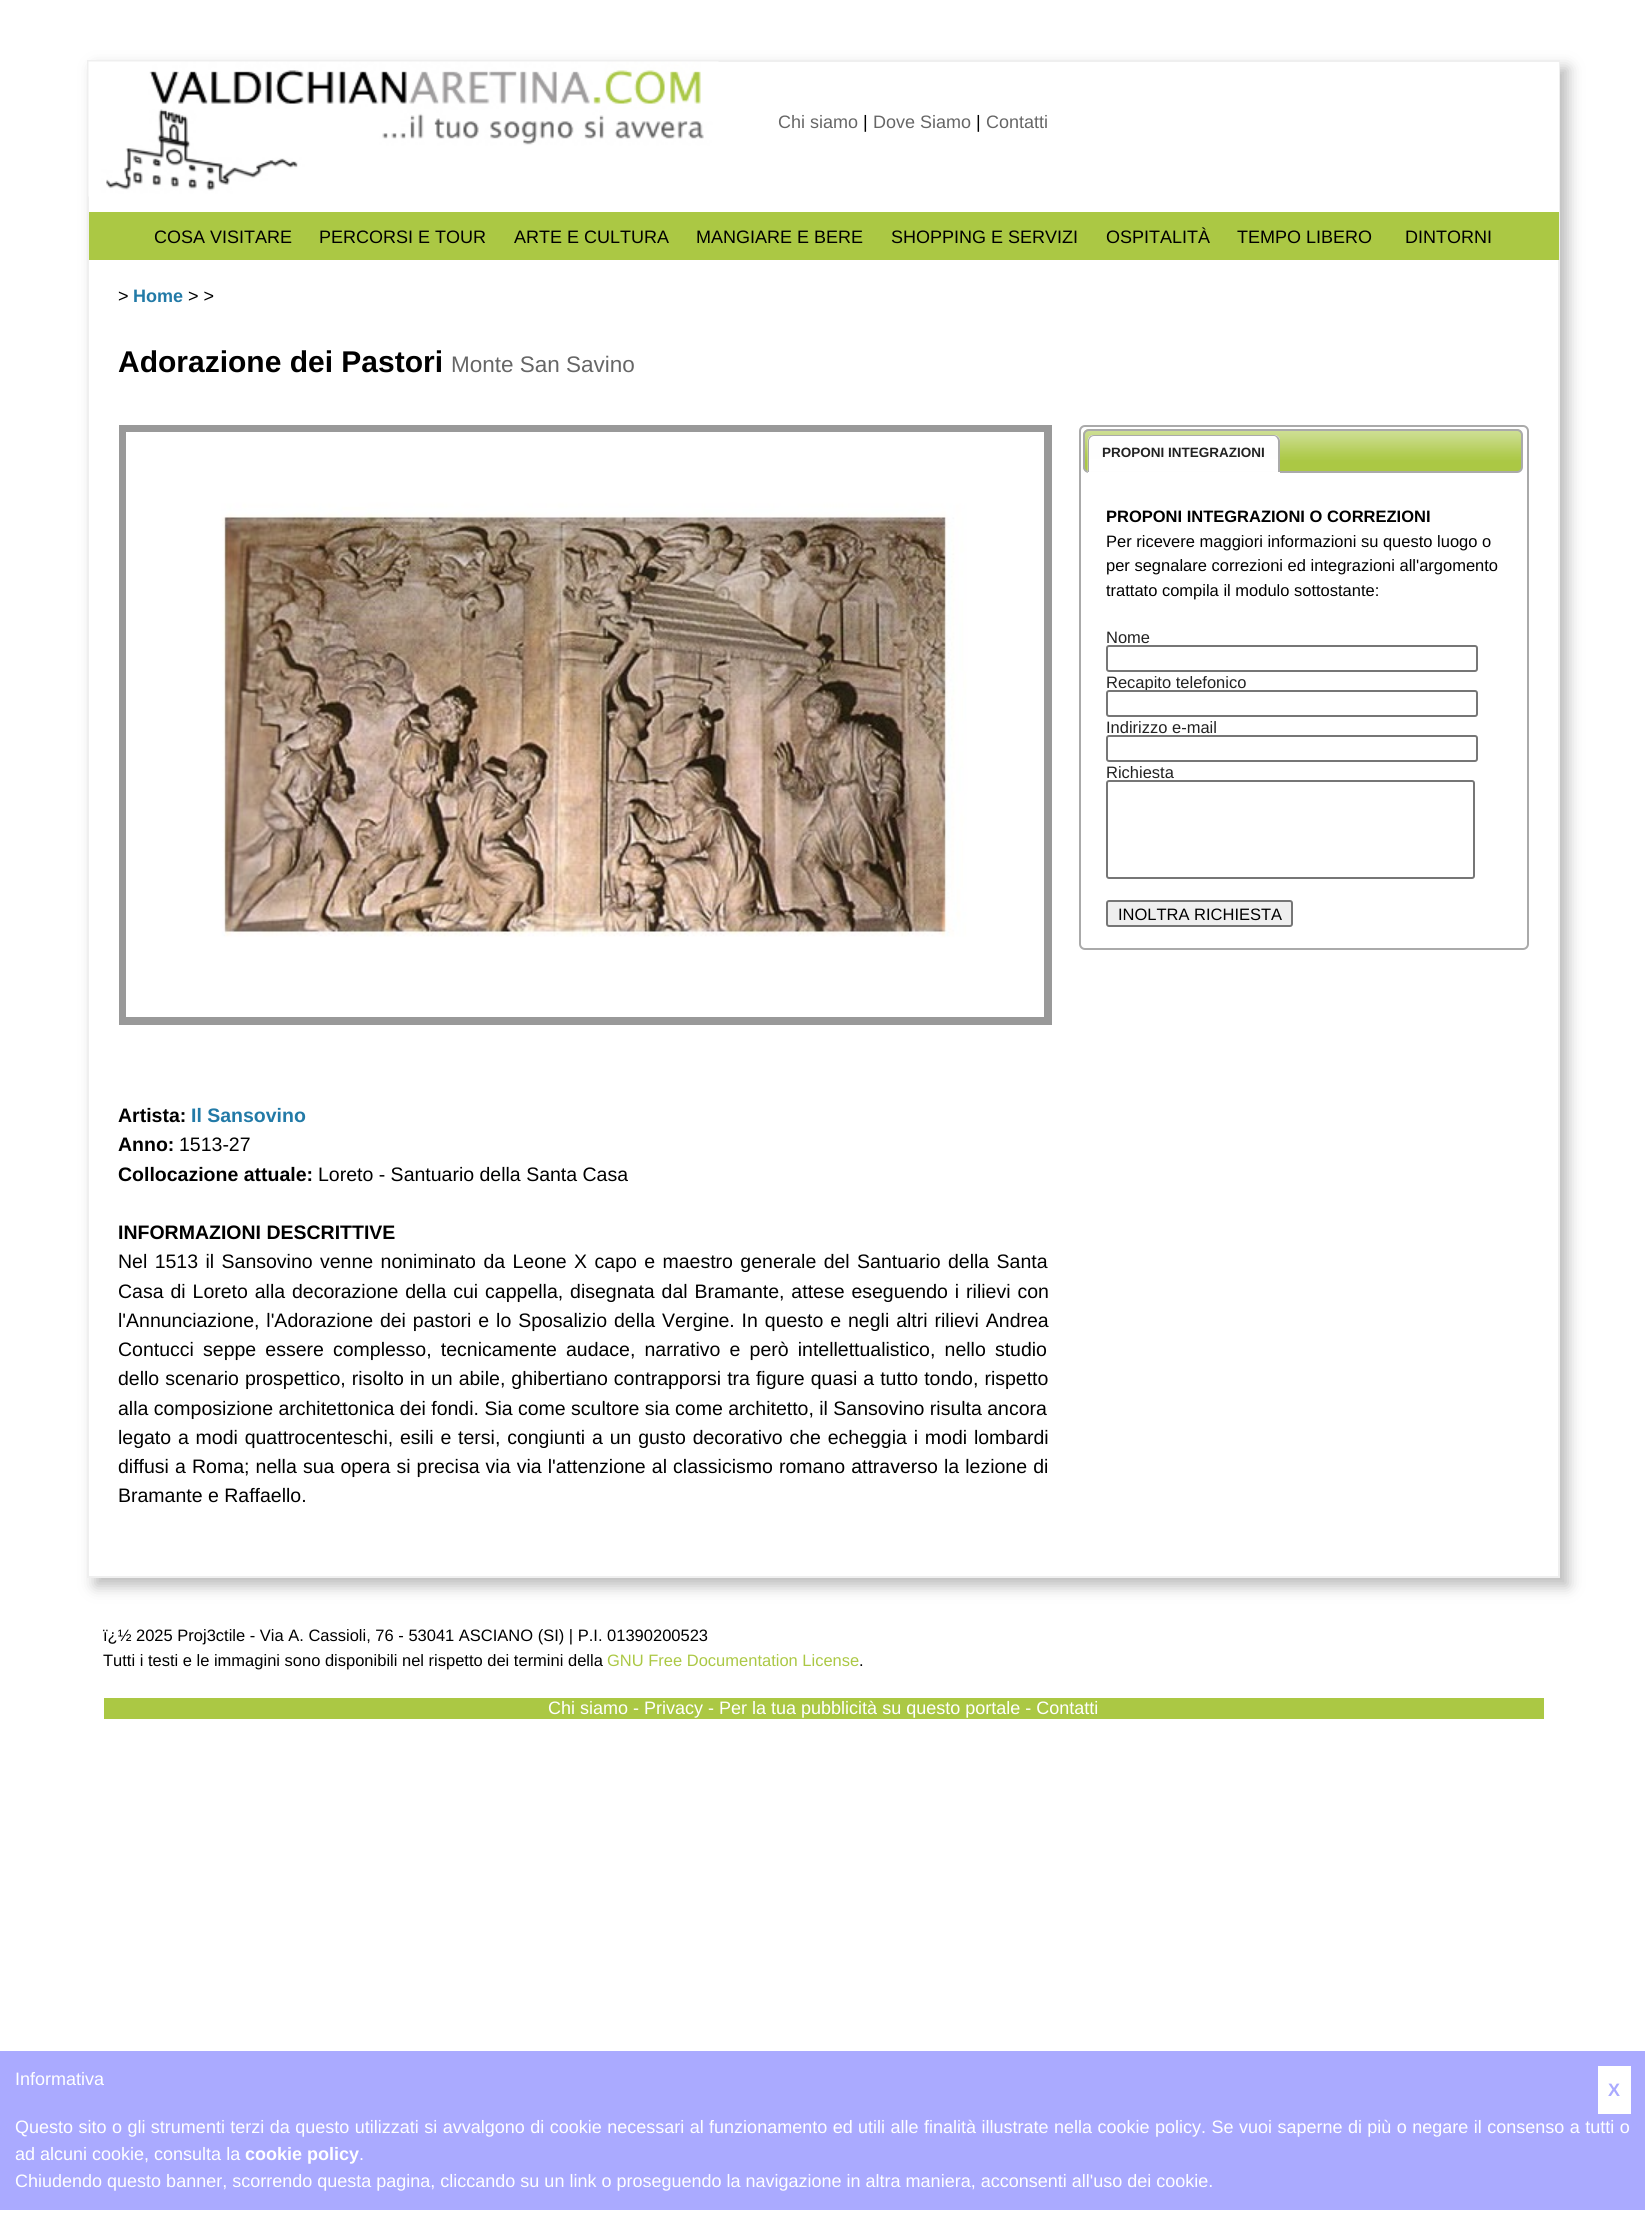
import math
import cairocffi as cairo

surface = cairo.ImageSurface(cairo.FORMAT_RGB24, 1645, 2217)
ctx = cairo.Context(surface)
options = cairo.FontOptions()
options.set_hint_metrics(cairo.HINT_METRICS_OFF)
options.set_hint_style(cairo.HINT_STYLE_NONE)
ctx.set_font_options(options)
ctx.set_miter_limit(4)


def rgb(r, g, b):
    ctx.set_source_rgb(r / 255, g / 255, b / 255)


def face(family, size, italic, bold):
    ctx.select_font_face(family, cairo.FONT_SLANT_ITALIC if italic else cairo.FONT_SLANT_NORMAL, cairo.FONT_WEIGHT_BOLD if bold else cairo.FONT_WEIGHT_NORMAL)
    ctx.set_font_size(size)


def label(x, y, s):
    ctx.move_to(x, y)
    ctx.show_text(s)


def tracked(x, y, s, letter, word):
    ctx.move_to(x, y)
    for ch in s:
        ctx.show_text(ch)
        ctx.rel_move_to(letter + word * (ch == ' '), 0)


def rect(x, y, w, h):
    ctx.rectangle(x, y, w, h)
    ctx.fill()


def rrect(x, y, w, h, r):
    ctx.new_sub_path()
    for i, (u, v) in enumerate([(x + w - r, y + h - r), (x + r, y + h - r), (x + r, y + r), (x + w - r, y + r)]):
        ctx.arc(u, v, r, i * math.pi / 2, (i + 1) * math.pi / 2)
    ctx.close_path()


def soft_shadow(x, y, w, h, r, blur, alpha):
    ctx.push_group_with_content(cairo.CONTENT_ALPHA)
    ctx.set_operator(cairo.OPERATOR_SOURCE)
    for i in range(15, -16, -2):
        e = blur * i / 6
        if min(w, h) + 2 * e > 0:
            ctx.set_source_rgba(0, 0, 0, alpha * math.erfc((i - 1) / 8.5) / 2)
            rrect(x - e, y - e, w + 2 * e, h + 2 * e, max(0, min(r + e + blur * .6, min(w, h) / 2 + e)))
            ctx.fill()
    ctx.mask(ctx.pop_group())


def image(path, x, y, w, h):
    ctx.save()
    ctx.set_source_surface(cairo.ImageSurface.create_from_png(path), x, y)
    ctx.rectangle(x, y, w, h)
    ctx.fill()
    ctx.restore()


rgb(255, 255, 255)
ctx.paint()
ctx.save()
ctx.set_fill_rule(cairo.FILL_RULE_EVEN_ODD)
ctx.new_path()
ctx.move_to(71, 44)
ctx.line_to(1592, 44)
ctx.line_to(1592, 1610)
ctx.line_to(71, 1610)
ctx.close_path()
ctx.move_to(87, 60)
ctx.line_to(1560, 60)
ctx.line_to(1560, 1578)
ctx.line_to(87, 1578)
ctx.close_path()
ctx.clip()
rgb(187, 187, 187)
soft_shadow(95, 68, 1473, 1518, 0, 7.5, 1)
ctx.restore()
ctx.rectangle(88, 61, 1471, 1516)
rgb(239, 239, 239)
ctx.stroke()
rgb(255, 255, 255)
rect(1558, 62, 1, 150)
image('image0.png', 88, 61, 631, 136)
face('Liberation Sans', 18, 0, 0)
rgb(102, 102, 102)
label(778, 128, 'Chi siamo')
rgb(0, 0, 0)
label(863, 128, '|')
rgb(102, 102, 102)
label(873, 128, 'Dove Siamo')
rgb(0, 0, 0)
label(976, 128, '|')
rgb(102, 102, 102)
label(986, 128, 'Contatti')
rgb(171, 200, 68)
rect(89, 212, 1470, 48)
rgb(0, 0, 0)
label(154, 243, 'COSA VISITARE')
label(319, 243, 'PERCORSI E TOUR')
label(514, 243, 'ARTE E CULTURA')
label(696, 243, 'MANGIARE E BERE')
label(891, 243, 'SHOPPING E SERVIZI')
label(1106, 243, 'OSPITALITÀ')
label(1237, 243, 'TEMPO LIBERO')
label(1405, 243, 'DINTORNI')
label(118, 302, '>')
face('Liberation Sans', 18, 0, 1)
rgb(34, 122, 167)
label(133, 302, 'Home')
face('Liberation Sans', 18, 0, 0)
rgb(0, 0, 0)
label(188, 302, '> >')
face('Liberation Sans', 30, 0, 1)
label(118, 372, 'Adorazione dei Pastori')
face('Liberation Sans', 22.5, 0, 0)
rgb(102, 102, 102)
label(451, 372, 'Monte San Savino')
ctx.rectangle(123, 429, 925, 592)
rgb(153, 153, 153)
ctx.set_line_width(8)
ctx.stroke()
image('image1.png', 126, 432, 918, 585)
rrect(1080, 426, 448, 523, 5)
rgb(170, 170, 170)
ctx.set_line_width(2)
ctx.stroke()
image('image2.png', 1083, 429, 440, 43)
rrect(1084, 430, 438, 42, 5)
ctx.stroke()
rgb(255, 255, 255)
ctx.new_path()
ctx.move_to(1094, 435)
ctx.line_to(1274, 435)
ctx.curve_to(1277.5, 435, 1280, 437.5, 1280, 441)
ctx.line_to(1280, 473)
ctx.line_to(1088, 473)
ctx.line_to(1088, 441)
ctx.curve_to(1088, 437.5, 1090.5, 435, 1094, 435)
ctx.close_path()
ctx.fill()
image('image3.png', 1087, 435, 192, 38)
rgb(170, 170, 170)
ctx.set_fill_rule(cairo.FILL_RULE_EVEN_ODD)
ctx.new_path()
ctx.move_to(1094, 435)
ctx.line_to(1274, 435)
ctx.curve_to(1277, 435, 1280, 438, 1280, 441)
ctx.line_to(1280, 472)
ctx.line_to(1088, 472)
ctx.line_to(1088, 441)
ctx.curve_to(1088, 438, 1090, 435, 1094, 435)
ctx.close_path()
ctx.move_to(1094, 436)
ctx.line_to(1274, 436)
ctx.curve_to(1276, 436, 1278, 439, 1278, 441)
ctx.line_to(1278, 472)
ctx.line_to(1089, 472)
ctx.line_to(1089, 441)
ctx.curve_to(1089, 439, 1091, 436, 1094, 436)
ctx.close_path()
ctx.fill()
face('Liberation Sans', 13.5, 0, 1)
rgb(34, 34, 34)
label(1102, 457, 'PROPONI INTEGRAZIONI')
face('Liberation Sans', 16.5, 0, 1)
rgb(0, 0, 0)
label(1106, 522, 'PROPONI INTEGRAZIONI O CORREZIONI')
face('Liberation Sans', 16.5, 0, 0)
label(1106, 547, 'Per ricevere maggiori informazioni su questo luogo o')
label(1106, 571, 'per segnalare correzioni ed integrazioni all\'argomento')
label(1106, 596, 'trattato compila il modulo sottostante:')
rgb(34, 34, 34)
label(1106, 643, 'Nome')
rrect(1107, 646, 370, 25, 2)
rgb(118, 118, 118)
ctx.stroke()
rgb(34, 34, 34)
label(1106, 688, 'Recapito telefonico')
rgb(255, 255, 255)
rrect(1107, 691, 370, 25, 2)
ctx.fill_preserve()
rgb(118, 118, 118)
ctx.stroke()
rgb(34, 34, 34)
label(1106, 733, 'Indirizzo e-mail')
rrect(1107, 736, 370, 25, 2)
rgb(118, 118, 118)
ctx.stroke()
rgb(34, 34, 34)
label(1106, 778, 'Richiesta')
rrect(1107, 781, 367, 97, 2)
rgb(118, 118, 118)
ctx.stroke()
rgb(239, 239, 239)
rrect(1107, 901, 185, 25, 2)
ctx.fill_preserve()
rgb(118, 118, 118)
ctx.stroke()
rgb(0, 0, 0)
label(1118, 920, 'INOLTRA RICHIESTA')
face('Liberation Sans', 19.5, 0, 1)
label(118, 1122, 'Artista:')
rgb(34, 122, 167)
label(191, 1122, 'Il Sansovino')
rgb(0, 0, 0)
label(118, 1151, 'Anno:')
face('Liberation Sans', 19.5, 0, 0)
label(179, 1151, '1513-27')
face('Liberation Sans', 19.5, 0, 1)
label(118, 1181, 'Collocazione attuale:')
face('Liberation Sans', 19.5, 0, 0)
label(318, 1181, 'Loreto - Santuario della Santa Casa')
face('Liberation Sans', 19.5, 0, 1)
label(118, 1239, 'INFORMAZIONI DESCRITTIVE')
face('Liberation Sans', 19.5, 0, 0)
tracked(118, 1268, 'Nel 1513 il Sansovino venne noniminato da Leone X capo e maestro generale del Santuario della Santa', 0, 2)
tracked(118, 1298, 'Casa di Loreto alla decorazione della cui cappella, disegnata dal Bramante, attese eseguendo i rilievi con', 0, 1.5)
tracked(118, 1327, 'l\'Annunciazione, l\'Adorazione dei pastori e lo Sposalizio della Vergine. In questo e negli altri rilievi Andrea', 0, 1.5)
tracked(118, 1356, 'Contucci seppe essere complesso, tecnicamente audace, narrativo e però intellettualistico, nello studio', 0, 3.75)
tracked(118, 1385, 'dello scenario prospettico, risolto in un abile, ghibertiano contrapporsi tra figure quasi a tutto tondo, rispetto', 0, 0.6)
label(118, 1415, 'alla composizione architettonica dei fondi. Sia come scultore sia come architetto, il Sansovino risulta ancora')
tracked(118, 1444, 'legato a modi quattrocenteschi, esili e tersi, congiunti a un gusto decorativo che echeggia i modi lombardi', 0, 1.4)
tracked(118, 1473, 'diffusi a Roma; nella sua opera si precisa via via l\'attenzione al classicismo romano attraverso la lezione di', 0, 0.7)
label(118, 1502, 'Bramante e Raffaello.')
face('Liberation Sans', 16.5, 0, 0)
label(103, 1641, 'ï¿½ 2025 Proj3ctile - Via A. Cassioli, 76 - 53041 ASCIANO (SI) | P.I. 01390200523')
label(103, 1666, 'Tutti i testi e le immagini sono disponibili nel rispetto dei termini della')
rgb(171, 200, 68)
label(607, 1666, 'GNU Free Documentation License')
rgb(0, 0, 0)
label(859, 1666, '.')
rgb(171, 200, 68)
rect(104, 1698, 1440, 21)
face('Liberation Sans', 18, 0, 0)
rgb(255, 255, 255)
label(548, 1714, 'Chi siamo - Privacy - Per la tua pubblicità su questo portale - Contatti')
rgb(170, 170, 255)
rect(0, 2051, 1645, 159)
rgb(255, 255, 255)
label(15, 2085, 'Informativa')
rect(1598, 2066, 33, 48)
face('Liberation Sans', 18, 0, 1)
rgb(170, 170, 255)
label(1608, 2096, 'X')
face('Liberation Sans', 18, 0, 0)
rgb(255, 255, 255)
tracked(15, 2133, 'Questo sito o gli strumenti terzi da questo utilizzati si avvalgono di cookie necessari al funzionamento ed utili alle finalità illustrate nella cookie policy. Se vuoi saperne di più o negare il consenso a tutti o', 0, 0.45)
label(15, 2160, 'ad alcuni cookie, consulta la')
face('Liberation Sans', 18, 0, 1)
label(245, 2160, 'cookie policy')
face('Liberation Sans', 18, 0, 0)
label(359, 2160, '.')
label(15, 2187, 'Chiudendo questo banner, scorrendo questa pagina, cliccando su un link o proseguendo la navigazione in altra maniera, acconsenti all\'uso dei cookie.')
surface.write_to_png('render.png')
